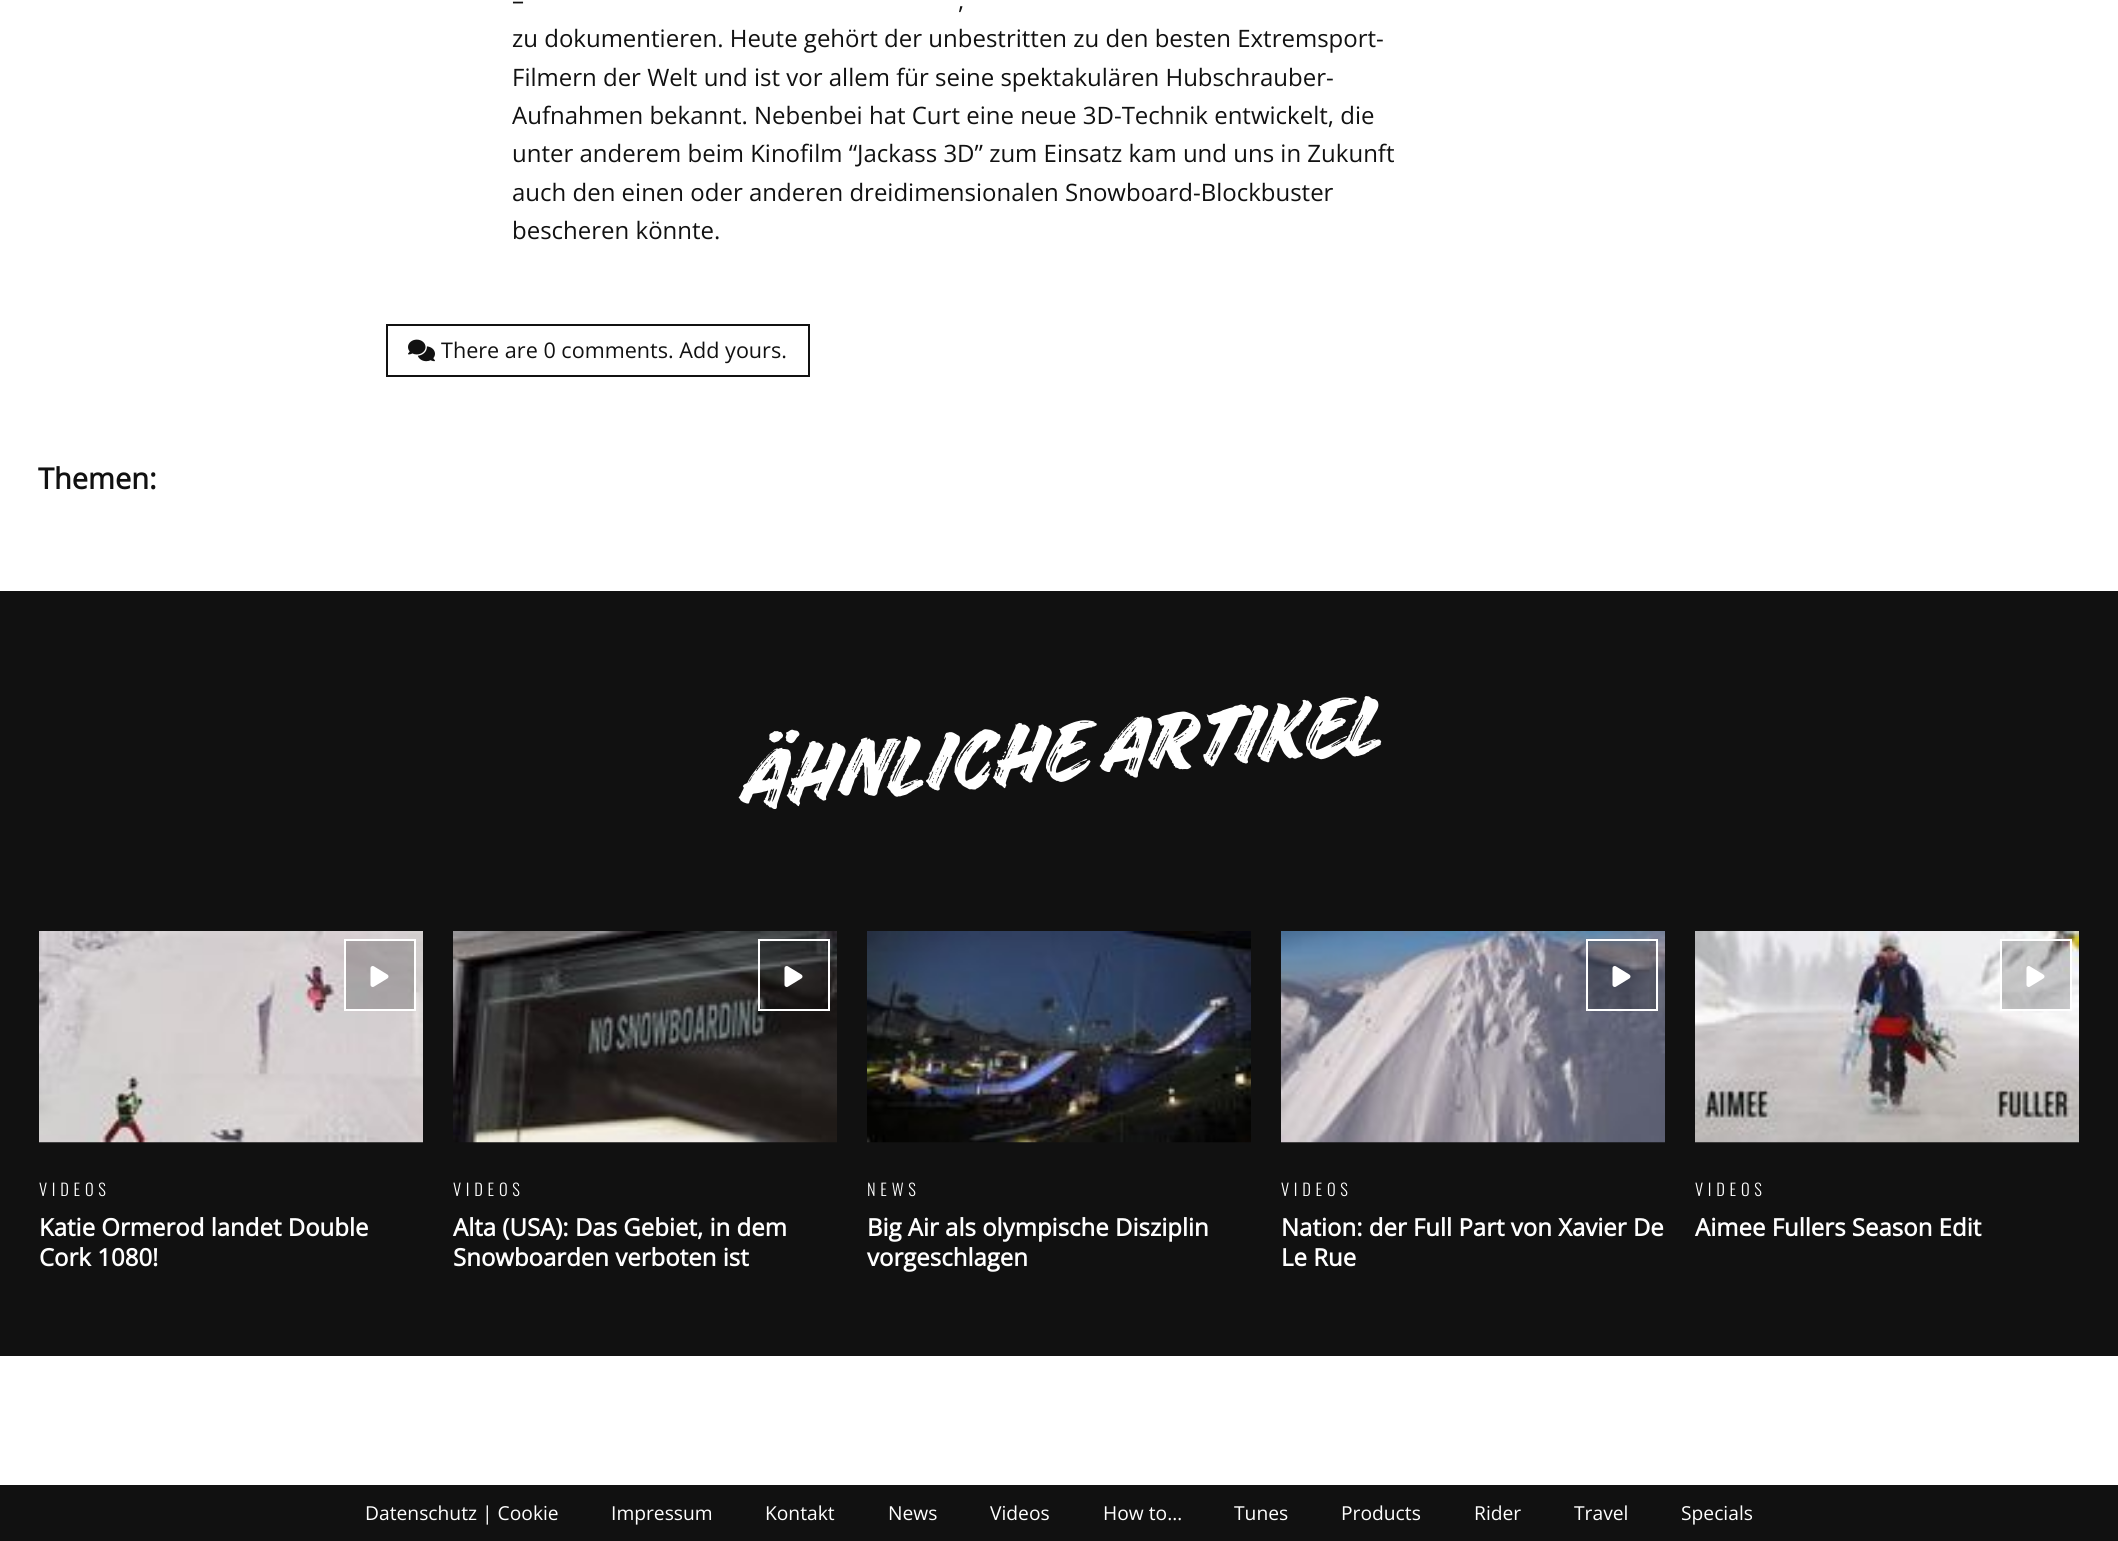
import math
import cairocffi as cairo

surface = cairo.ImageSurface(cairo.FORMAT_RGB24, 2118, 1541)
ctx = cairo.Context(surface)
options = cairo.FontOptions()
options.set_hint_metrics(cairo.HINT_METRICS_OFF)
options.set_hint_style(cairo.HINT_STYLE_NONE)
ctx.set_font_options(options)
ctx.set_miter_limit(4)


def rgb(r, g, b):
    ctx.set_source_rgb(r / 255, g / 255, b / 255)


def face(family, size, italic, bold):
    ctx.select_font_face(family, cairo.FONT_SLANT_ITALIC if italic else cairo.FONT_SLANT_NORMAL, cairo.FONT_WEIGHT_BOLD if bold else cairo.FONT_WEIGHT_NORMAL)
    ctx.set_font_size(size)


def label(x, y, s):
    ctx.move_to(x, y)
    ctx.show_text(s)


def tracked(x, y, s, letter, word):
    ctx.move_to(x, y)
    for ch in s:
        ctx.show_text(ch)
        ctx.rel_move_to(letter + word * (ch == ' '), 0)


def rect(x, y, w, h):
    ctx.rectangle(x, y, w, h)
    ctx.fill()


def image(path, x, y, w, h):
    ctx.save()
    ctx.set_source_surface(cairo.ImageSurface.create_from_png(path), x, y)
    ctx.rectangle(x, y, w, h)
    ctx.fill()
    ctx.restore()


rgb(255, 255, 255)
ctx.paint()
face('Open Sans', 24, 0, 0)
rgb(17, 17, 17)
label(512, 9, '–')
label(958, 9, ',')
label(512, 47, 'zu dokumentieren. Heute gehört der unbestritten zu den besten Extremsport-')
label(512, 86, 'Filmern der Welt und ist vor allem für seine spektakulären Hubschrauber-')
label(512, 124, 'Aufnahmen bekannt. Nebenbei hat Curt eine neue 3D-Technik entwickelt, die')
label(512, 162, 'unter anderem beim Kinofilm “Jackass 3D” zum Einsatz kam und uns in Zukunft')
label(512, 201, 'auch den einen oder anderen dreidimensionalen Snowboard-Blockbuster')
label(512, 239, 'bescheren könnte.')
ctx.rectangle(387, 325, 422, 51)
ctx.stroke()
image('image0.png', 408, 339, 27, 23)
face('Open Sans', 21.6, 0, 0)
label(441, 358, 'There are 0 comments. Add yours.')
face('Open Sans', 29, 0, 1)
label(38, 489, 'Themen:')
rect(0, 591, 2118, 765)
face('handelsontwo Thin', 96, 0, 0)
rgb(255, 255, 255)
ctx.save()
ctx.translate(739, 807)
ctx.rotate(-5 * math.pi / 180)
tracked(0, 0, 'ÄHNLICHE ARTIKEL', 0, 1)
ctx.restore()
image('image1.png', 39, 931, 384, 212)
ctx.set_source_rgba(0, 0, 0, 0.2)
ctx.rectangle(345, 940, 70, 70)
ctx.fill_preserve()
rgb(255, 255, 255)
ctx.stroke()
image('image2.png', 370, 966, 19, 21)
face('Oswald Light', 16.5, 0, 0)
tracked(39, 1196, 'VIDEOS', 4.75, 0)
face('Open Sans', 24, 0, 1)
label(39, 1236, 'Katie Ormerod landet Double')
label(39, 1266, 'Cork 1080!')
image('image3.png', 453, 931, 384, 212)
ctx.set_source_rgba(0, 0, 0, 0.2)
ctx.rectangle(759, 940, 70, 70)
ctx.fill_preserve()
rgb(255, 255, 255)
ctx.stroke()
image('image4.png', 784, 966, 19, 21)
face('Oswald Light', 16.5, 0, 0)
tracked(453, 1196, 'VIDEOS', 4.75, 0)
face('Open Sans', 24, 0, 1)
label(453, 1236, 'Alta (USA): Das Gebiet, in dem')
label(453, 1266, 'Snowboarden verboten ist')
image('image5.png', 867, 931, 384, 212)
face('Oswald Light', 16.5, 0, 0)
tracked(867, 1196, 'NEWS', 4.75, 0)
face('Open Sans', 24, 0, 1)
label(867, 1236, 'Big Air als olympische Disziplin')
label(867, 1266, 'vorgeschlagen')
image('image6.png', 1281, 931, 384, 212)
ctx.set_source_rgba(0, 0, 0, 0.2)
ctx.rectangle(1587, 940, 70, 70)
ctx.fill_preserve()
rgb(255, 255, 255)
ctx.stroke()
image('image7.png', 1612, 966, 19, 21)
face('Oswald Light', 16.5, 0, 0)
tracked(1281, 1196, 'VIDEOS', 4.75, 0)
face('Open Sans', 24, 0, 1)
label(1281, 1236, 'Nation: der Full Part von Xavier De')
label(1281, 1266, 'Le Rue')
image('image8.png', 1695, 931, 384, 212)
ctx.set_source_rgba(0, 0, 0, 0.2)
ctx.rectangle(2001, 940, 70, 70)
ctx.fill_preserve()
rgb(255, 255, 255)
ctx.stroke()
image('image9.png', 2026, 966, 19, 21)
face('Oswald Light', 16.5, 0, 0)
tracked(1695, 1196, 'VIDEOS', 4.75, 0)
face('Open Sans', 24, 0, 1)
label(1695, 1236, 'Aimee Fullers Season Edit')
rgb(17, 17, 17)
rect(0, 1485, 2118, 56)
face('Open Sans', 19.25, 0, 0)
rgb(255, 255, 255)
label(365, 1520, 'Datenschutz | Cookie')
label(611, 1520, 'Impressum')
label(765, 1520, 'Kontakt')
label(888, 1520, 'News')
label(990, 1520, 'Videos')
label(1103, 1520, 'How to…')
label(1234, 1520, 'Tunes')
label(1341, 1520, 'Products')
label(1474, 1520, 'Rider')
label(1574, 1520, 'Travel')
label(1681, 1520, 'Specials')
surface.write_to_png('render.png')
